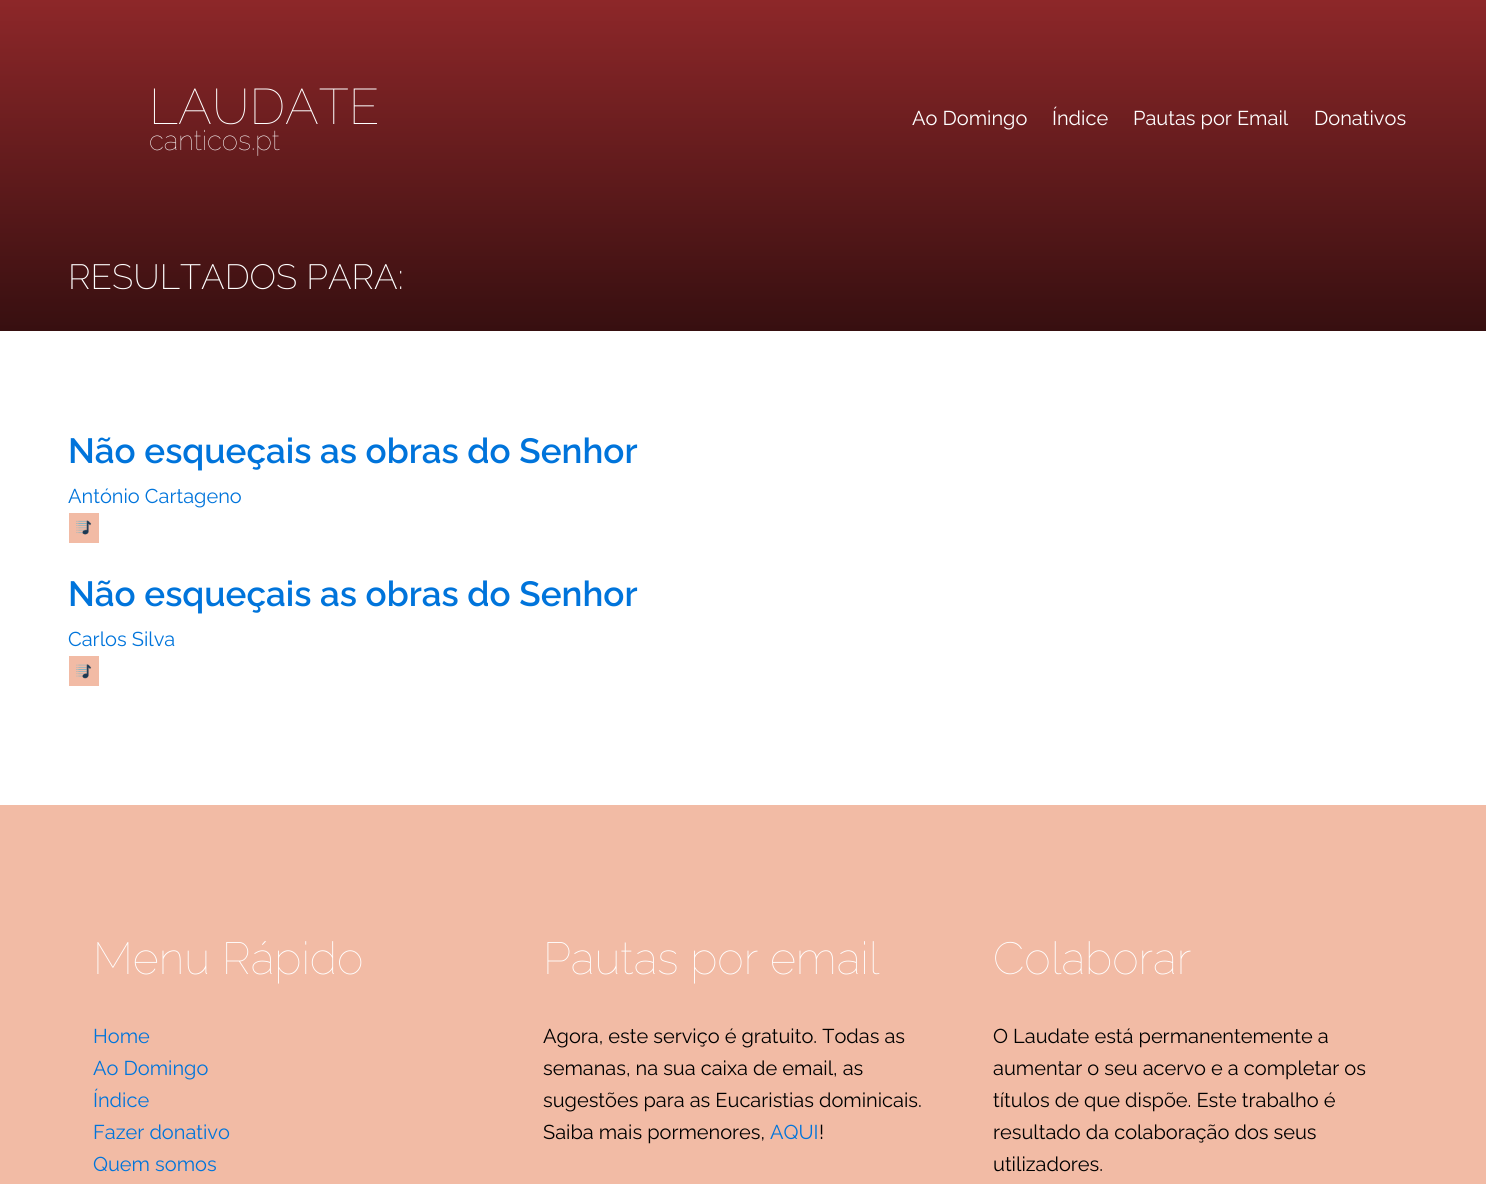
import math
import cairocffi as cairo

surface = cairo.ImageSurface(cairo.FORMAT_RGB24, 1486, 1184)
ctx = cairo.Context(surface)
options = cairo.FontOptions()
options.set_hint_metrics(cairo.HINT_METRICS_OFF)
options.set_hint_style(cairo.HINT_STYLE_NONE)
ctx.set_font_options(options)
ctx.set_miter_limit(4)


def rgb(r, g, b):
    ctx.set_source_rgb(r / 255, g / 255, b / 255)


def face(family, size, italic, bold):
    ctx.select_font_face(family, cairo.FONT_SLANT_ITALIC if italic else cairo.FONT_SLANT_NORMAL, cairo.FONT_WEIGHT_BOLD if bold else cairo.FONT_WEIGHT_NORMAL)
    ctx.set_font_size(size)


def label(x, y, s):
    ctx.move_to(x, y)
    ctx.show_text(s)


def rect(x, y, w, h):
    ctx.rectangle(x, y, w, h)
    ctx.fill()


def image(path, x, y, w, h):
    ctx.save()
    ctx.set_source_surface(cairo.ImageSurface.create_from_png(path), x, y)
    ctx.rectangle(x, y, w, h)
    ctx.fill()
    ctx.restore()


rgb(255, 255, 255)
ctx.paint()
gradient = cairo.LinearGradient(743, 0, 743, 331)
gradient.add_color_stop_rgba(0, 0.553, 0.153, 0.161, 1)
gradient.add_color_stop_rgba(1, 0.216, 0.059, 0.063, 1)
ctx.set_source(gradient)
rect(0, 0, 1486, 331)
face('Raleway Thin', 50, 0, 0)
rgb(255, 255, 255)
label(149, 124, 'LAUDATE')
face('Raleway Thin', 27.5, 0, 0)
label(149, 150, 'canticos.pt')
face('Raleway', 20, 0, 0)
label(912, 125, 'Ao Domingo')
label(1052, 125, 'Índice')
label(1133, 125, 'Pautas por Email')
label(1314, 125, 'Donativos')
face('Raleway ExtraLight', 35, 0, 0)
label(68, 289, 'RESULTADOS PARA:')
face('Raleway SemiBold', 35, 0, 0)
rgb(0, 116, 219)
label(68, 463, 'Não esqueçais as obras do Senhor')
face('Raleway', 20, 0, 0)
label(68, 503, 'António Cartageno')
rgb(242, 187, 165)
rect(69, 513, 30, 30)
image('image0.png', 76, 520, 16, 15)
face('Raleway SemiBold', 35, 0, 0)
rgb(0, 116, 219)
label(68, 606, 'Não esqueçais as obras do Senhor')
face('Raleway', 20, 0, 0)
label(68, 646, 'Carlos Silva')
rgb(242, 187, 165)
rect(69, 656, 30, 30)
image('image1.png', 76, 664, 16, 15)
rect(0, 805, 1486, 379)
face('Raleway Thin', 45, 0, 0)
rgb(255, 255, 255)
label(93, 974, 'Menu Rápido')
face('Raleway', 20, 0, 0)
rgb(0, 116, 219)
label(93, 1043, 'Home')
label(93, 1075, 'Ao Domingo')
label(93, 1107, 'Índice')
label(93, 1139, 'Fazer donativo')
label(93, 1171, 'Quem somos')
face('Raleway Thin', 45, 0, 0)
rgb(255, 255, 255)
label(543, 974, 'Pautas por email')
face('Raleway', 20, 0, 0)
rgb(0, 0, 0)
label(543, 1043, 'Agora, este serviço é gratuito. Todas as')
label(543, 1075, 'semanas, na sua caixa de email, as')
label(543, 1107, 'sugestões para as Eucaristias dominicais.')
label(543, 1139, 'Saiba mais pormenores,')
rgb(0, 116, 219)
label(770, 1139, 'AQUI')
rgb(0, 0, 0)
label(819, 1139, '!')
face('Raleway Thin', 45, 0, 0)
rgb(255, 255, 255)
label(993, 974, 'Colaborar')
face('Raleway', 20, 0, 0)
rgb(0, 0, 0)
label(993, 1043, 'O Laudate está permanentemente a')
label(993, 1075, 'aumentar o seu acervo e a completar os')
label(993, 1107, 'títulos de que dispõe. Este trabalho é')
label(993, 1139, 'resultado da colaboração dos seus')
label(993, 1171, 'utilizadores.')
surface.write_to_png('render.png')
